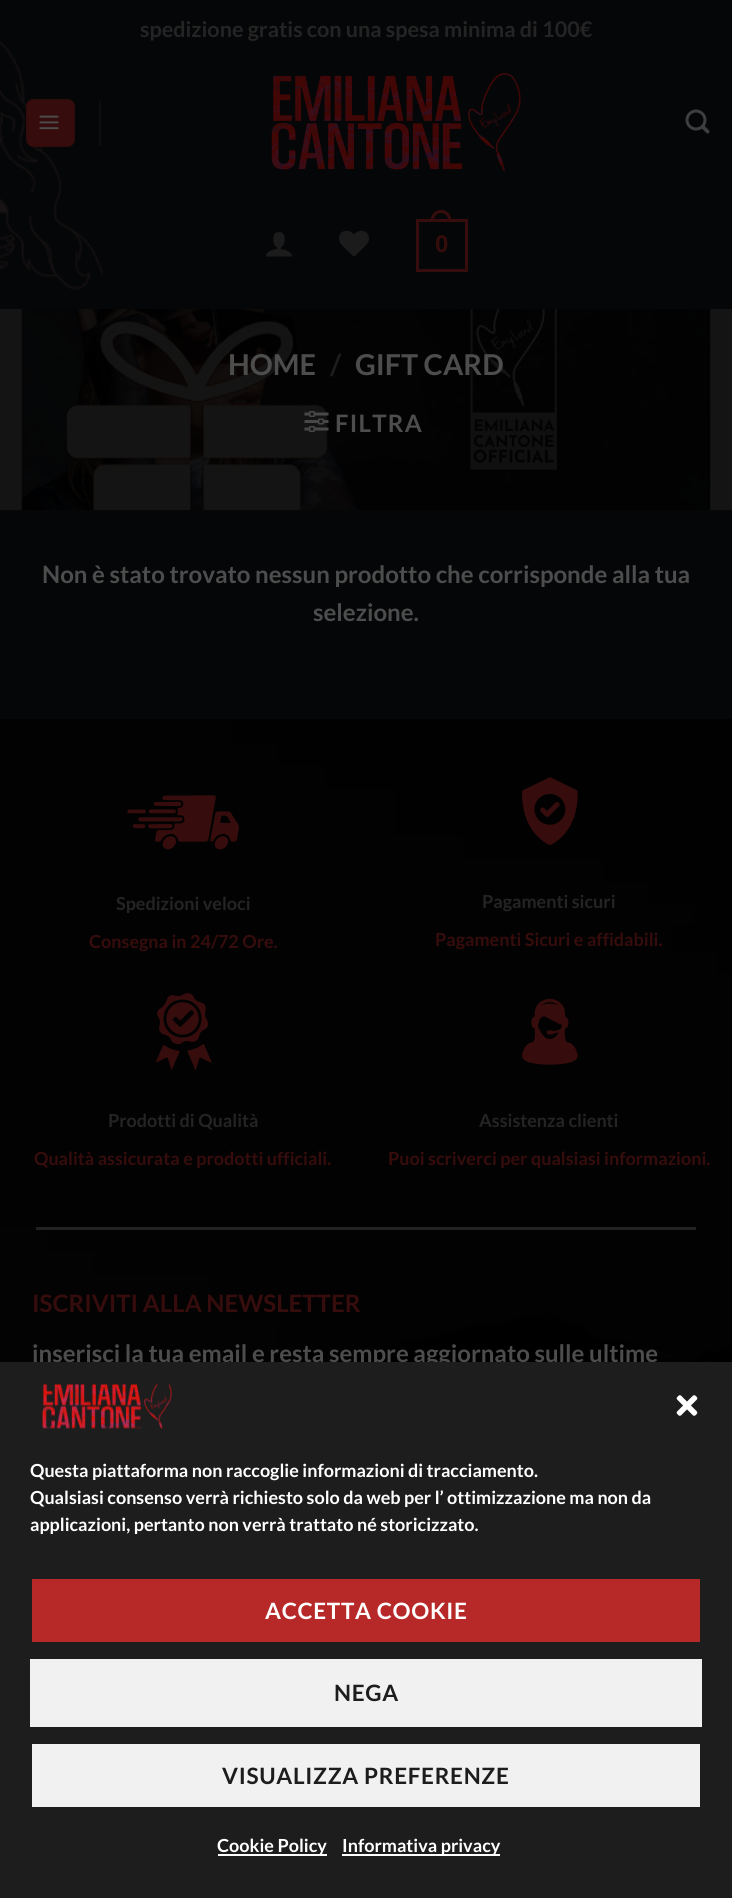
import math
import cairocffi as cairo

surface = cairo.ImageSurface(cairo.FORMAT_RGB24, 732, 1898)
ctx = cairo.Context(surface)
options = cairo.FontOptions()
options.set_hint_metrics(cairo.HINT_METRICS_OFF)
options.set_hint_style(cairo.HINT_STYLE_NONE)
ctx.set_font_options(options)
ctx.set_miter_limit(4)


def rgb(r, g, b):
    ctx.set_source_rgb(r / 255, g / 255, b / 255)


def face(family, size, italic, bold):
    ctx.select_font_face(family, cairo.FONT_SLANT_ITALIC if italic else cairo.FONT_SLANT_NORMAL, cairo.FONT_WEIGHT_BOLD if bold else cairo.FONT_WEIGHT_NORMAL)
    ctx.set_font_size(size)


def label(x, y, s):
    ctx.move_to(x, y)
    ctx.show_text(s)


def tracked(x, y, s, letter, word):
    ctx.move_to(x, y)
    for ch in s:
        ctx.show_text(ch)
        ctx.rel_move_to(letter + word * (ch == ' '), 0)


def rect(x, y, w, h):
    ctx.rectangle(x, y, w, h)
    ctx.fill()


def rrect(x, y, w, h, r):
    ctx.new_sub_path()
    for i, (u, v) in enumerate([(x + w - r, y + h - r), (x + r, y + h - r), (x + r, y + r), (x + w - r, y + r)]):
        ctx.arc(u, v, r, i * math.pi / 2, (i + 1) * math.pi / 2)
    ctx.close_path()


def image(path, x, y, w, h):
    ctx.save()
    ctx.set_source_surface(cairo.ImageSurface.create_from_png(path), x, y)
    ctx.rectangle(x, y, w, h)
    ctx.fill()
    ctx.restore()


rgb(5, 6, 7)
ctx.paint()
face('Lato', 21.6, 0, 1)
rgb(36, 36, 36)
label(140, 37, 'spedizione gratis con una spesa minima di 100€')
image('image0.png', 0, 40, 103, 250)
rgb(55, 12, 12)
rrect(26, 99, 49, 48, 8)
ctx.fill()
ctx.rectangle(27, 100, 47, 46)
ctx.set_source_rgba(0, 0, 0, 0.05)
ctx.stroke()
image('image1.png', 39, 115, 20, 15)
rgb(12, 13, 14)
rect(99, 101, 2, 45)
image('image2.png', 271, 73, 250, 98)
image('image3.png', 685, 109, 25, 25)
image('image4.png', 266, 232, 26, 25)
image('image5.png', 339, 230, 30, 27)
ctx.rectangle(417.5, 220.5, 49, 50)
rgb(55, 12, 12)
ctx.set_line_width(3)
ctx.stroke()
ctx.set_fill_rule(cairo.FILL_RULE_EVEN_ODD)
ctx.new_path()
ctx.move_to(441, 210)
ctx.curve_to(448, 210, 451.5, 215.5, 451.5, 222)
ctx.line_to(430.5, 222)
ctx.curve_to(430.5, 215.5, 434, 210, 441, 210)
ctx.close_path()
ctx.move_to(441, 213)
ctx.curve_to(446.5, 213, 448.5, 217.5, 448.5, 222)
ctx.line_to(433.5, 222)
ctx.curve_to(433.5, 217.5, 435.5, 213, 441, 213)
ctx.close_path()
ctx.fill()
face('Liberation Sans', 24, 0, 1)
label(435, 252, '0')
image('image6.png', 0, 309, 732, 201)
face('Lato', 28.75, 0, 1)
rgb(77, 77, 77)
label(228, 375, 'HOME')
rgb(29, 29, 29)
label(330, 375, '/')
rgb(77, 77, 77)
label(355, 375, 'GIFT CARD')
image('image7.png', 304, 411, 25, 21)
face('Lato', 24, 0, 1)
tracked(335, 432, 'FILTRA', 1.25, 0)
label(42, 583, 'Non è stato trovato nessun prodotto che corrisponde alla tua')
label(313, 621, 'selezione.')
image('image8.png', 0, 719, 732, 643)
image('image9.png', 127, 795, 112, 55)
face('Lato', 18, 0, 1)
rgb(36, 36, 36)
label(116, 910, 'Spedizioni veloci')
rgb(55, 12, 12)
label(89, 948, 'Consegna in 24/72 Ore.')
image('image10.png', 522, 777, 56, 69)
rgb(36, 36, 36)
label(482, 908, 'Pagamenti sicuri')
rgb(55, 12, 12)
label(435, 946, 'Pagamenti Sicuri e affidabili.')
image('image11.png', 156, 993, 56, 78)
rgb(36, 36, 36)
label(108, 1127, 'Prodotti di Qualità')
rgb(55, 12, 12)
label(34, 1165, 'Qualità assicurata e prodotti ufficiali.')
image('image12.png', 522, 998, 56, 67)
rgb(36, 36, 36)
label(479, 1127, 'Assistenza clienti')
rgb(55, 12, 12)
label(388, 1165, 'Puoi scriverci per qualsiasi informazioni.')
rgb(34, 34, 34)
rect(36, 1227, 660, 3)
face('Lato', 24, 0, 1)
rgb(55, 12, 12)
label(32, 1312, 'ISCRIVITI ALLA NEWSLETTER')
rgb(77, 77, 77)
label(32, 1362, 'inserisci la tua email e resta sempre aggiornato sulle ultime')
rgb(29, 29, 29)
rect(0, 1362, 732, 536)
image('image13.png', 42, 1384, 130, 45)
image('image14.png', 676, 1395, 22, 21)
face('Lato', 18, 0, 1)
rgb(255, 255, 255)
label(30, 1477, 'Questa piattaforma non raccoglie informazioni di tracciamento.')
label(30, 1504, 'Qualsiasi consenso verrà richiesto solo da web per l’ ottimizzazione ma non da')
label(30, 1531, 'applicazioni, pertanto non verrà trattato né storicizzato.')
rgb(183, 41, 40)
rect(32, 1579, 668, 63)
face('Lato', 22.5, 0, 1)
rgb(255, 255, 255)
tracked(265, 1619, 'ACCETTA COOKIE', 0.7, 0)
rgb(241, 241, 241)
rect(30, 1659, 672, 68)
rgb(29, 29, 29)
tracked(334, 1701, 'NEGA', 0.7, 0)
rgb(241, 241, 241)
rect(32, 1744, 668, 63)
rgb(29, 29, 29)
tracked(222, 1784, 'VISUALIZZA PREFERENZE', 0.7, 0)
rgb(255, 255, 255)
rect(218, 1854, 109, 2)
face('Lato', 18, 0, 1)
label(217, 1852, 'Cookie Policy')
rect(342, 1854, 158, 2)
label(342, 1852, 'Informativa privacy')
surface.write_to_png('render.png')
